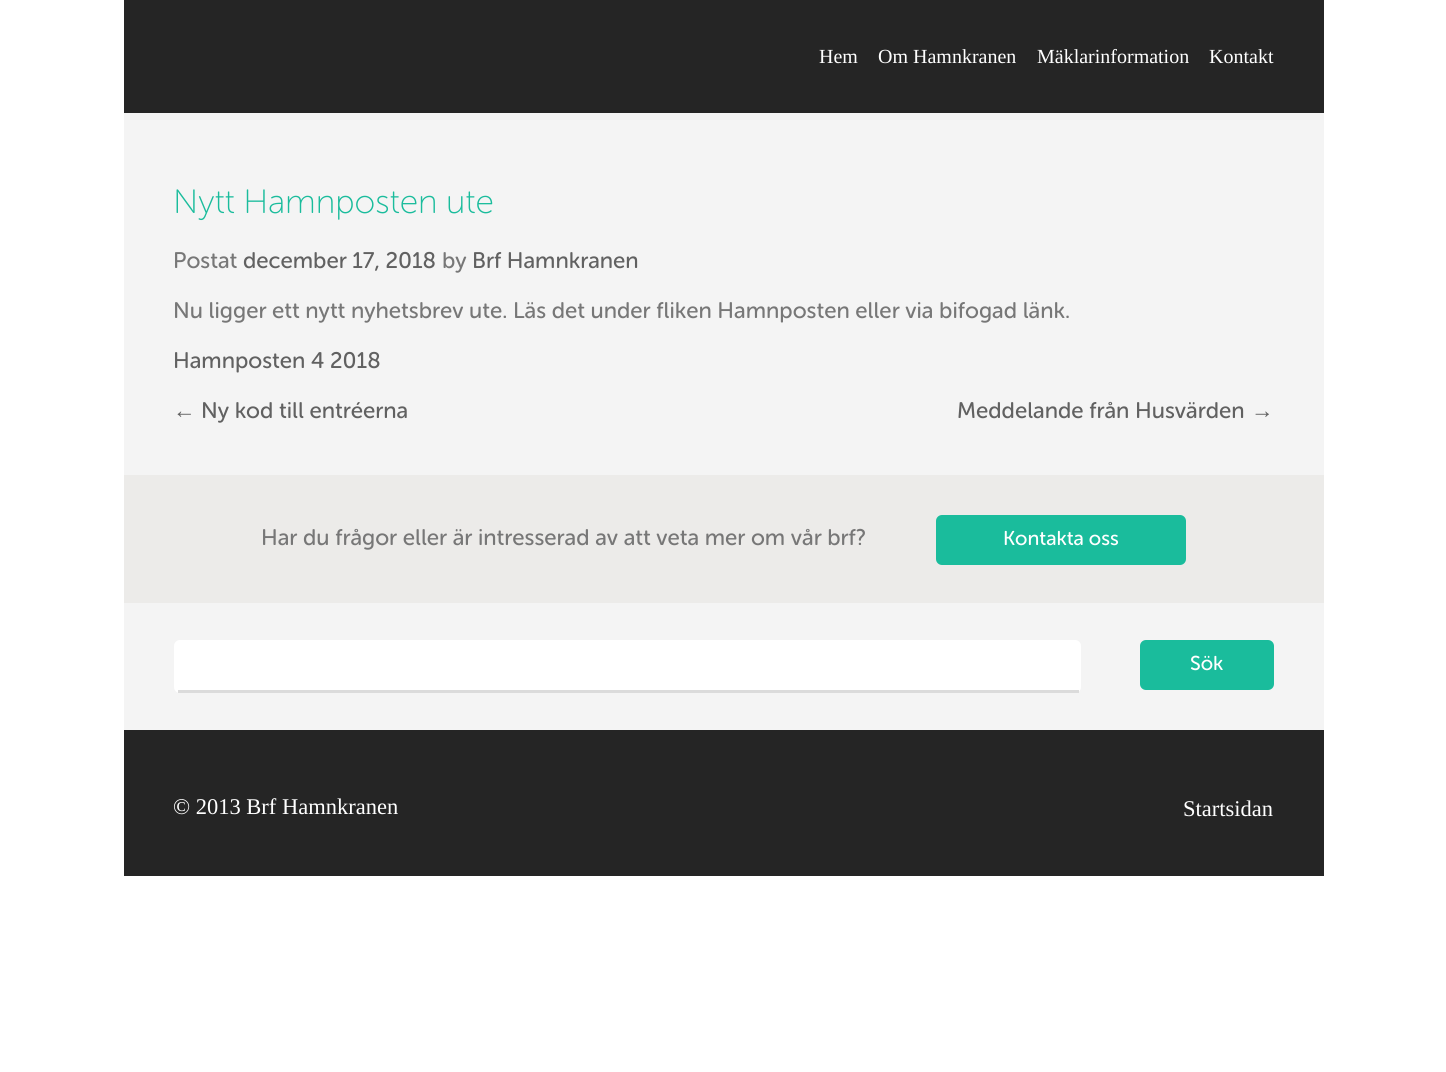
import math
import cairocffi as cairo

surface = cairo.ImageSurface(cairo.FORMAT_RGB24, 1446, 1072)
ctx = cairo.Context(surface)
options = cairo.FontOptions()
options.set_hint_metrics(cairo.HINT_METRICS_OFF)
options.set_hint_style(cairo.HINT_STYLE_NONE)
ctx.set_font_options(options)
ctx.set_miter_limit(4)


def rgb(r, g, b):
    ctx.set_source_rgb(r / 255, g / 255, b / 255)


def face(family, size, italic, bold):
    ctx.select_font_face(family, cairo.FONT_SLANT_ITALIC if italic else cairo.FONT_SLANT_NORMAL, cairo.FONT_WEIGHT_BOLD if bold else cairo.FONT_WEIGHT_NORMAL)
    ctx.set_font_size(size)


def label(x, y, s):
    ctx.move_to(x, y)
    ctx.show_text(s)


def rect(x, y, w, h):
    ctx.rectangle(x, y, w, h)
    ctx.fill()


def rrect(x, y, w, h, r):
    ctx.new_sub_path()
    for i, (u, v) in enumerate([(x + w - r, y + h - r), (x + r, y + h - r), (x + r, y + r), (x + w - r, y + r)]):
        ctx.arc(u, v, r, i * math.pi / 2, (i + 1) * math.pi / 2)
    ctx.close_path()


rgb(255, 255, 255)
ctx.paint()
rgb(244, 244, 244)
rect(124, 113, 1200, 617)
rgb(37, 37, 37)
rect(124, 0, 1200, 113)
face('Liberation Serif', 20, 0, 0)
rgb(255, 255, 255)
label(819, 63, 'Hem')
label(878, 63, 'Om Hamnkranen')
label(1037, 63, 'Mäklarinformation')
label(1209, 63, 'Kontakt')
face('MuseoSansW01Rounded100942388', 33.75, 0, 0)
rgb(26, 188, 156)
label(173, 213, 'Nytt Hamnposten ute')
face('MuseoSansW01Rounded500', 22.5, 0, 0)
rgb(119, 119, 119)
label(173, 268, 'Postat')
rgb(97, 97, 97)
label(243, 268, 'december 17, 2018')
rgb(119, 119, 119)
label(442, 268, 'by')
rgb(97, 97, 97)
label(472, 268, 'Brf Hamnkranen')
rgb(119, 119, 119)
label(173, 318, 'Nu ligger ett nytt nyhetsbrev ute. Läs det under fliken Hamnposten eller via bifogad länk.')
rgb(97, 97, 97)
label(173, 368, 'Hamnposten 4 2018')
face('Liberation Sans', 22.5, 0, 0)
label(173, 418, '←')
face('MuseoSansW01Rounded500', 22.5, 0, 0)
label(201, 418, 'Ny kod till entréerna')
label(957, 418, 'Meddelande från Husvärden')
face('Liberation Sans', 22.5, 0, 0)
label(1251, 418, '→')
rgb(236, 235, 233)
rect(124, 475, 1200, 128)
face('MuseoSansW01Rounded500', 22.5, 0, 0)
rgb(119, 119, 119)
label(261, 545, 'Har du frågor eller är intresserad av att veta mer om vår brf?')
rgb(26, 188, 156)
rrect(936, 515, 250, 50, 6)
ctx.fill()
face('MuseoSansW01Rounded500', 20, 0, 0)
rgb(255, 255, 255)
label(1003, 545, 'Kontakta oss')
rrect(174, 640, 907, 53, 6)
ctx.fill()
rgb(219, 219, 219)
rect(178, 690, 901, 3)
rgb(26, 188, 156)
rrect(1140, 640, 134, 50, 6)
ctx.fill()
rgb(255, 255, 255)
label(1190, 670, 'Sök')
rgb(37, 37, 37)
rect(124, 730, 1200, 146)
face('Liberation Serif', 22.5, 0, 0)
rgb(255, 255, 255)
label(173, 814, '© 2013 Brf Hamnkranen')
label(1183, 816, 'Startsidan')
surface.write_to_png('render.png')
